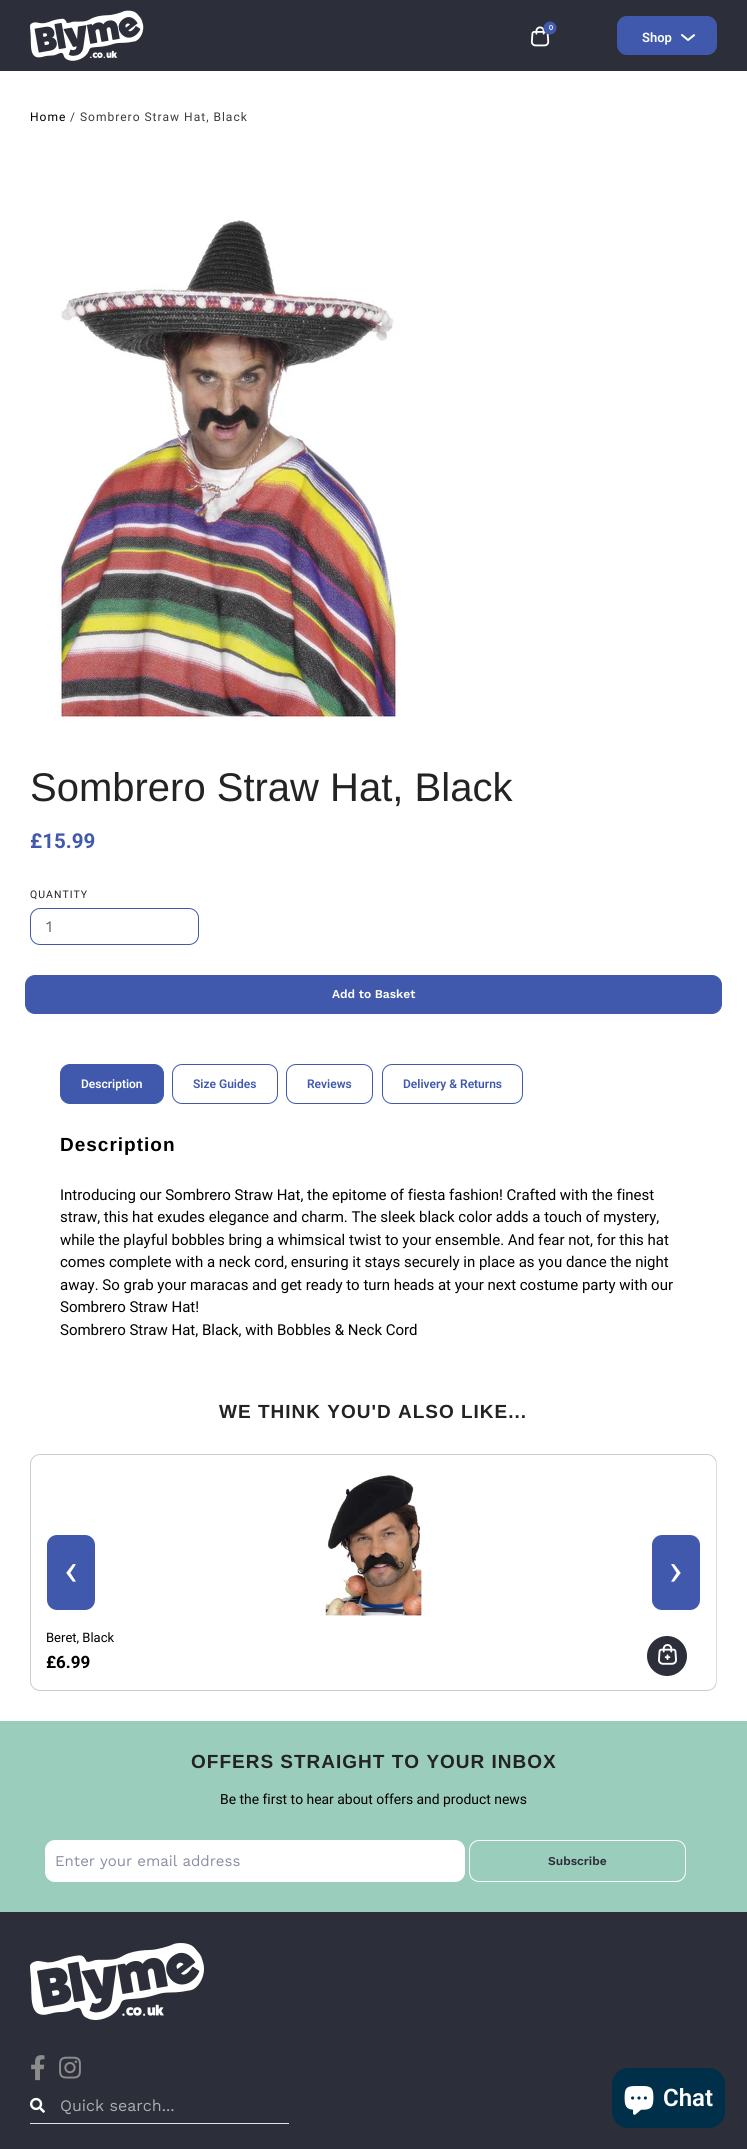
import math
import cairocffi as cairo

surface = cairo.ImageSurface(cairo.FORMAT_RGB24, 747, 2149)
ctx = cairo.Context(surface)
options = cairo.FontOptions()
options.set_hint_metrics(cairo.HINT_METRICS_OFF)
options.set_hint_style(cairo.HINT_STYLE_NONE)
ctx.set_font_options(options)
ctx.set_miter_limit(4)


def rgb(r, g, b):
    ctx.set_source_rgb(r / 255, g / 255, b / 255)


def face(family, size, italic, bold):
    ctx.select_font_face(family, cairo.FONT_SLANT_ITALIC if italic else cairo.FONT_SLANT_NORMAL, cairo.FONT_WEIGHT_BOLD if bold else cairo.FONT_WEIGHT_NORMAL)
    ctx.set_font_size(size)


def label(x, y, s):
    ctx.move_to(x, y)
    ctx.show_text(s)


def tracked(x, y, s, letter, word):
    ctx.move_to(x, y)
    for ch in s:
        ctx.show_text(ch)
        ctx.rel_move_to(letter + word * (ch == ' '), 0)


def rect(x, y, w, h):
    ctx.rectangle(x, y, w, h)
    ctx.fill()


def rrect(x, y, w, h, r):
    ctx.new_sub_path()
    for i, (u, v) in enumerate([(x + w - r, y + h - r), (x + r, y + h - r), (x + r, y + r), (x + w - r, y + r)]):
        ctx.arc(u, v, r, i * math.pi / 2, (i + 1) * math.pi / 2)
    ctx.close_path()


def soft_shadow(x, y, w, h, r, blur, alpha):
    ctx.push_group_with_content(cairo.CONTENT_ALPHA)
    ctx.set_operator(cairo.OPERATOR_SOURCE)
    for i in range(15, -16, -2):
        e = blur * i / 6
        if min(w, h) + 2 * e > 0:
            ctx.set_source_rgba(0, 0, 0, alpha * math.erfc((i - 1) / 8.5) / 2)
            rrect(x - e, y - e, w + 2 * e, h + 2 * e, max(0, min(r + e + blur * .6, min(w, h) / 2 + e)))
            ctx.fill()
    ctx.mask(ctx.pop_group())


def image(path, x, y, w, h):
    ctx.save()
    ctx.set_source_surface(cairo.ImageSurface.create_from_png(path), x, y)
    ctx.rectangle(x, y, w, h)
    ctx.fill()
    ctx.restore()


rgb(255, 255, 255)
ctx.paint()
rgb(44, 47, 58)
rect(0, 0, 747, 71)
image('image0.png', 30, 10, 114, 51)
image('image1.png', 530, 21, 27, 26)
face('Lato', 7, 0, 1)
rgb(255, 255, 255)
label(549, 30, '0')
rgb(64, 89, 173)
rrect(617.5, 16.5, 99, 38, 9.5)
ctx.fill_preserve()
ctx.set_line_width(1)
ctx.stroke()
face('Roboto SemiBold', 13, 0, 0)
rgb(255, 255, 255)
label(642, 42, 'Shop')
image('image2.png', 681, 34, 14, 7)
face('Roboto', 12, 0, 0)
rgb(0, 0, 0)
tracked(30, 121, 'Home', 1, 0)
rgb(60, 60, 60)
tracked(70, 121, '/ Sombrero Straw Hat, Black', 1, 0)
image('image3.png', 56, 219, 342, 504)
face('Liberation Sans', 40, 0, 0)
rgb(35, 35, 35)
label(30, 801, 'Sombrero Straw Hat, Black')
face('Roboto', 20.5, 0, 1)
rgb(64, 89, 173)
label(30, 848, '£15.99')
face('Roboto', 10.5, 0, 0)
rgb(35, 35, 35)
tracked(30, 898, 'QUANTITY', 1, 0)
rrect(30.5, 908.5, 168, 36, 9.5)
rgb(64, 89, 173)
ctx.stroke()
face('Work Sans', 16, 0, 0)
rgb(100, 100, 100)
label(46, 932, '1')
rgb(64, 89, 173)
rrect(25.5, 975.5, 696, 38, 9.5)
ctx.fill_preserve()
ctx.stroke()
face('Work Sans SemiBold', 12, 0, 0)
rgb(255, 255, 255)
label(332, 998, 'Add to Basket')
rgb(64, 89, 173)
rrect(60.5, 1064.5, 103, 39, 9.5)
ctx.fill_preserve()
ctx.stroke()
face('Roboto SemiBold', 12, 0, 0)
rgb(255, 255, 255)
label(81, 1088, 'Description')
rrect(172.5, 1064.5, 105, 39, 9.5)
rgb(64, 89, 173)
ctx.stroke()
label(193, 1088, 'Size Guides')
rrect(286.5, 1064.5, 86, 39, 9.5)
ctx.stroke()
label(307, 1088, 'Reviews')
rrect(382.5, 1064.5, 140, 39, 9.5)
ctx.stroke()
label(403, 1088, 'Delivery & Returns')
face('Liberation Sans', 19, 0, 1)
rgb(0, 0, 0)
tracked(60, 1151, 'Description', 1, 0)
face('Roboto', 15, 0, 0)
label(60, 1200, 'Introducing our Sombrero Straw Hat, the epitome of fiesta fashion! Crafted with the finest')
label(60, 1222, 'straw, this hat exudes elegance and charm. The sleek black color adds a touch of mystery,')
label(60, 1245, 'while the playful bobbles bring a whimsical twist to your ensemble. And fear not, for this hat')
label(60, 1267, 'comes complete with a neck cord, ensuring it stays securely in place as you dance the night')
label(60, 1290, 'away. So grab your maracas and get ready to turn heads at your next costume party with our')
label(60, 1312, 'Sombrero Straw Hat!')
label(60, 1335, 'Sombrero Straw Hat, Black, with Bobbles & Neck Cord')
face('Liberation Sans', 19, 0, 1)
rgb(35, 35, 35)
tracked(219, 1418, 'WE THINK YOU\'D ALSO LIKE...', 1, 0)
rrect(30.5, 1454.5, 686, 236, 9.5)
rgb(204, 204, 204)
ctx.stroke()
rgb(64, 89, 173)
rrect(47, 1535, 48, 75, 10)
ctx.fill()
face('Roboto', 45, 0, 0)
rgb(255, 255, 255)
label(64, 1585, '‹')
rgb(64, 89, 173)
rrect(652, 1535, 48, 75, 10)
ctx.fill()
rgb(255, 255, 255)
label(669, 1585, '›')
image('image4.png', 325, 1475, 98, 142)
face('Roboto', 13, 0, 0)
rgb(0, 0, 0)
label(46, 1642, 'Beret, Black')
face('Roboto', 17, 0, 1)
label(46, 1668, '£6.99')
rgb(44, 47, 58)
ctx.new_path()
ctx.arc(667, 1656, 20, 0, 2 * math.pi)
ctx.fill()
image('image5.png', 658, 1644, 19, 21)
ctx.save()
ctx.rectangle(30, 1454, 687, 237)
ctx.clip()
rgb(255, 255, 255)
soft_shadow(717, 1454, 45, 237, 10, 1.5, 1)
ctx.restore()
rgb(155, 205, 188)
rect(0, 1721, 747, 191)
face('Liberation Sans', 19, 0, 1)
rgb(35, 35, 35)
tracked(191, 1768, 'OFFERS STRAIGHT TO YOUR INBOX', 1, 0)
face('Roboto', 13.9, 0, 0)
rgb(0, 0, 0)
label(220, 1804, 'Be the first to hear about offers and product news')
rgb(255, 255, 255)
rrect(45, 1840, 420, 42, 10)
ctx.fill()
face('Work Sans', 15, 0, 0)
rgb(136, 142, 163)
label(55, 1866, 'Enter your email address')
rrect(469.5, 1840.5, 216, 41, 9.5)
rgb(255, 255, 255)
ctx.stroke()
face('Work Sans SemiBold', 12, 0, 0)
rgb(44, 47, 58)
label(548, 1865, 'Subscribe')
rect(0, 1912, 747, 237)
image('image6.png', 30, 1943, 174, 77)
image('image7.png', 31, 2055, 14, 26)
image('image8.png', 59, 2056, 22, 23)
rgb(227, 227, 227)
rect(30, 2123, 259, 1)
image('image9.png', 30, 2097, 15, 16)
face('Work Sans', 16, 0, 0)
rgb(171, 172, 176)
label(60, 2111, 'Quick search...')
rgb(0, 48, 73)
rrect(612, 2068, 113, 60, 16)
ctx.fill()
image('image10.png', 624, 2086, 30, 29)
face('Roboto SemiBold', 24, 0, 0)
rgb(255, 255, 255)
label(663, 2106, 'Chat')
surface.write_to_png('render.png')
